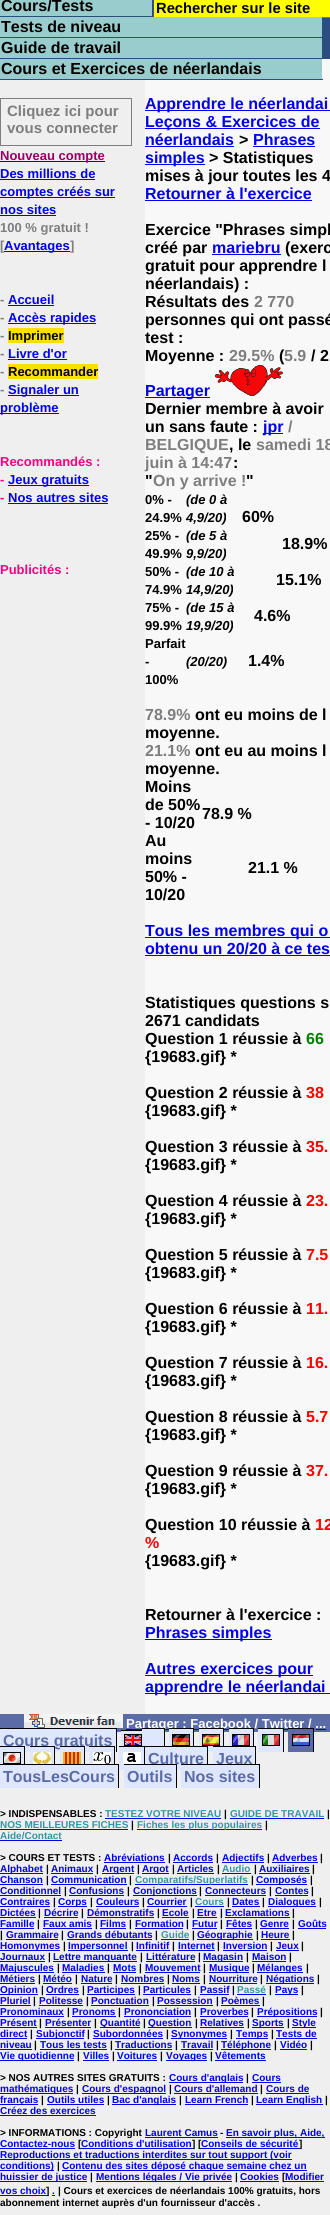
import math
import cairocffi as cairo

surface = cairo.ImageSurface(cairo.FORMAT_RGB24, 330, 2215)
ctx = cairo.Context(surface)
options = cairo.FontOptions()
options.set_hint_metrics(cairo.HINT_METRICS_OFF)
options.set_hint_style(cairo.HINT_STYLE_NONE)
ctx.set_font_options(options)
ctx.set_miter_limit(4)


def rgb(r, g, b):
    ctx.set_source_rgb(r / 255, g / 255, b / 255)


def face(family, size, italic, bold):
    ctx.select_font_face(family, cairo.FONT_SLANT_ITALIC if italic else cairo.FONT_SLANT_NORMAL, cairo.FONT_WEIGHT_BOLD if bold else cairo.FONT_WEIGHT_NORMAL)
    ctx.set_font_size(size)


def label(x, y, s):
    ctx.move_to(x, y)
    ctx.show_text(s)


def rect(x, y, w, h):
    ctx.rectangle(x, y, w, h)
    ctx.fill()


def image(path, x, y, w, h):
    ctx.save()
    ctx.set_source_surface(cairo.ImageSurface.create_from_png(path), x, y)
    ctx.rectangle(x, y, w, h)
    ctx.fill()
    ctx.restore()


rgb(43, 78, 128)
ctx.paint()
rgb(153, 204, 204)
rect(0, 0, 152, 16)
face('Liberation Sans', 16, 0, 1)
rgb(0, 0, 0)
label(1, 11, 'Cours/Tests')
rgb(79, 79, 79)
rect(153, 0, 1, 18)
rgb(153, 204, 204)
rect(0, 17, 322, 20)
rgb(0, 0, 0)
label(1, 32, 'Tests de niveau')
rgb(153, 204, 204)
rect(0, 38, 322, 20)
rgb(0, 0, 0)
label(1, 53, 'Guide de travail')
rgb(248, 248, 248)
rect(145, 59, 185, 1655)
rgb(43, 78, 128)
rect(145, 79, 178, 1)
rgb(153, 204, 204)
rect(0, 59, 322, 20)
rgb(0, 0, 0)
label(1, 74, 'Cours et Exercices de néerlandais')
rgb(255, 255, 0)
rect(154, 0, 176, 17)
rgb(118, 118, 118)
rect(322, 17, 8, 1)
face('Liberation Sans', 14.75, 0, 1)
rgb(0, 0, 0)
label(156, 13, 'Rechercher sur le site')
rgb(239, 239, 239)
rect(0, 80, 145, 1634)
ctx.rectangle(0.5, 98.5, 131, 47)
rgb(127, 125, 128)
ctx.set_line_width(1)
ctx.stroke()
face('Liberation Sans', 15, 0, 1)
label(7, 116, 'Cliquez ici pour')
label(7, 133, 'vous connecter')
rgb(0, 0, 238)
rect(0, 161, 105, 1)
face('Liberation Sans', 13, 0, 1)
rgb(153, 0, 102)
label(0, 160, 'Nouveau compte')
rgb(0, 0, 238)
label(0, 178, 'Des millions de')
rect(0, 179, 95, 1)
rect(0, 197, 115, 1)
label(0, 196, 'comptes créés sur')
label(0, 214, 'nos sites')
rect(0, 215, 56, 1)
rgb(127, 125, 128)
label(0, 232, '100 % gratuit !')
label(0, 250, '[')
rgb(0, 0, 238)
rect(4, 251, 66, 1)
label(4, 250, 'Avantages')
rgb(127, 125, 128)
label(70, 250, ']')
label(0, 304, '-')
rgb(0, 0, 238)
label(8, 304, 'Accueil')
rect(8, 305, 46, 1)
rgb(127, 125, 128)
label(0, 322, '-')
rgb(0, 0, 238)
rect(8, 323, 88, 1)
label(8, 322, 'Accès rapides')
rgb(127, 125, 128)
label(0, 340, '-')
rgb(255, 222, 2)
rect(8, 328, 56, 15)
rgb(0, 0, 0)
label(8, 340, 'Imprimer')
rgb(127, 125, 128)
label(0, 358, '-')
rgb(0, 0, 238)
label(8, 358, 'Livre d\'or')
rect(8, 359, 59, 1)
rgb(127, 125, 128)
label(0, 376, '-')
rgb(255, 222, 2)
rect(8, 364, 90, 15)
rgb(0, 0, 0)
label(8, 376, 'Recommander')
rgb(127, 125, 128)
label(0, 394, '-')
rgb(0, 0, 238)
rect(8, 395, 71, 1)
label(8, 394, 'Signaler un')
rect(0, 413, 59, 1)
label(0, 412, 'problème')
rgb(255, 0, 128)
label(0, 466, 'Recommandés :')
label(0, 484, '-')
rgb(0, 0, 238)
rect(8, 485, 81, 1)
label(8, 484, 'Jeux gratuits')
rgb(255, 0, 128)
label(0, 502, '-')
rgb(0, 0, 238)
label(8, 502, 'Nos autres sites')
rect(8, 503, 100, 1)
rgb(255, 0, 128)
label(0, 574, 'Publicités :')
rgb(0, 0, 238)
rect(145, 110, 185, 1)
face('Liberation Sans', 16, 0, 1)
label(145, 109, 'Apprendre le néerlandai')
rect(145, 128, 175, 1)
label(145, 127, 'Leçons & Exercices de')
label(145, 145, 'néerlandais')
rect(145, 146, 89, 1)
rgb(0, 0, 0)
label(239, 145, '>')
rgb(0, 0, 238)
label(253, 145, 'Phrases')
rect(253, 146, 62, 1)
rect(145, 164, 60, 1)
label(145, 163, 'simples')
rgb(0, 0, 0)
label(209, 163, '> Statistiques')
label(145, 181, 'mises à jour toutes les 4')
rgb(0, 0, 238)
label(145, 199, 'Retourner à l\'exercice')
rect(145, 200, 167, 1)
rgb(0, 0, 0)
label(145, 235, 'Exercice "Phrases simpl')
label(145, 253, 'créé par')
rgb(0, 0, 238)
label(212, 253, 'mariebru')
rect(212, 254, 69, 1)
rgb(0, 0, 0)
label(285, 253, '(exerc')
label(145, 271, 'gratuit pour apprendre l')
label(145, 289, 'néerlandais) :')
rgb(127, 125, 128)
label(254, 307, '2 770')
rgb(0, 0, 0)
label(145, 325, 'personnes qui ont passé')
label(145, 343, 'test :')
label(311, 361, '/ 2')
rgb(0, 0, 238)
rect(145, 397, 65, 1)
label(145, 396, 'Partager')
image('image0.png', 215, 365, 68, 31)
rgb(0, 0, 0)
label(145, 414, 'Dernier membre à avoir')
rgb(0, 0, 238)
rect(263, 433, 20, 1)
label(263, 432, 'jpr')
rgb(127, 125, 128)
label(288, 432, '/')
label(256, 450, 'samedi 18')
label(145, 468, 'juin à 14:47')
rgb(0, 0, 0)
label(233, 468, ':')
rgb(127, 125, 128)
label(153, 486, 'On y arrive !')
rgb(0, 0, 0)
label(246, 486, '"')
face('Liberation Sans', 13, 0, 1)
label(145, 504, '0% -')
label(145, 522, '24.9%')
face('Liberation Sans', 13, 1, 1)
label(186, 504, '(de 0 à')
label(186, 522, '4,9/20)')
face('Liberation Sans', 16, 0, 1)
label(242, 522, '60%')
face('Liberation Sans', 13, 0, 1)
label(145, 540, '25% -')
label(145, 558, '49.9%')
face('Liberation Sans', 13, 1, 1)
label(186, 540, '(de 5 à')
label(186, 558, '9,9/20)')
face('Liberation Sans', 16, 0, 1)
label(282, 549, '18.9%')
face('Liberation Sans', 13, 0, 1)
label(145, 576, '50% -')
label(145, 594, '74.9%')
face('Liberation Sans', 13, 1, 1)
label(186, 576, '(de 10 à')
label(186, 594, '14,9/20)')
face('Liberation Sans', 16, 0, 1)
label(276, 585, '15.1%')
face('Liberation Sans', 13, 0, 1)
label(145, 612, '75% -')
label(145, 630, '99.9%')
face('Liberation Sans', 13, 1, 1)
label(186, 612, '(de 15 à')
label(186, 630, '19,9/20)')
face('Liberation Sans', 16, 0, 1)
label(254, 621, '4.6%')
face('Liberation Sans', 13, 0, 1)
label(145, 648, 'Parfait')
label(145, 666, '-')
label(145, 684, '100%')
face('Liberation Sans', 13, 1, 1)
label(186, 666, '(20/20)')
face('Liberation Sans', 16, 0, 1)
label(248, 666, '1.4%')
rgb(127, 125, 128)
label(145, 720, '78.9%')
rgb(0, 0, 0)
label(195, 720, 'ont eu moins de l')
label(145, 738, 'moyenne.')
rgb(127, 125, 128)
label(145, 756, '21.1%')
rgb(0, 0, 0)
label(195, 756, 'ont eu au moins l')
label(145, 774, 'moyenne.')
label(145, 792, 'Moins')
label(145, 810, 'de 50%')
label(145, 828, '- 10/20')
label(202, 819, '78.9 %')
label(145, 846, 'Au')
label(145, 864, 'moins')
label(145, 882, '50% -')
label(145, 900, '10/20')
label(248, 873, '21.1 %')
rgb(0, 0, 238)
rect(145, 937, 185, 1)
label(145, 936, 'Tous les membres qui o')
label(145, 954, 'obtenu un 20/20 à ce tes')
rect(145, 955, 185, 1)
rgb(0, 0, 0)
label(145, 1008, 'Statistiques questions s')
label(145, 1026, '2671 candidats')
label(145, 1044, 'Question 1 réussie à')
rgb(0, 128, 0)
label(306, 1044, '66')
rgb(0, 0, 0)
label(145, 1062, '{19683.gif} *')
label(145, 1098, 'Question 2 réussie à')
rgb(255, 0, 0)
label(306, 1098, '38')
rgb(0, 0, 0)
label(145, 1116, '{19683.gif} *')
label(145, 1152, 'Question 3 réussie à')
rgb(255, 0, 0)
label(306, 1152, '35.')
rgb(0, 0, 0)
label(145, 1170, '{19683.gif} *')
label(145, 1206, 'Question 4 réussie à')
rgb(255, 0, 0)
label(306, 1206, '23.')
rgb(0, 0, 0)
label(145, 1224, '{19683.gif} *')
label(145, 1260, 'Question 5 réussie à')
rgb(255, 0, 0)
label(306, 1260, '7.5')
rgb(0, 0, 0)
label(145, 1278, '{19683.gif} *')
label(145, 1314, 'Question 6 réussie à')
rgb(255, 0, 0)
label(306, 1314, '11.')
rgb(0, 0, 0)
label(145, 1332, '{19683.gif} *')
label(145, 1368, 'Question 7 réussie à')
rgb(255, 0, 0)
label(306, 1368, '16.')
rgb(0, 0, 0)
label(145, 1386, '{19683.gif} *')
label(145, 1422, 'Question 8 réussie à')
rgb(255, 0, 0)
label(306, 1422, '5.7')
rgb(0, 0, 0)
label(145, 1440, '{19683.gif} *')
label(145, 1476, 'Question 9 réussie à')
rgb(255, 0, 0)
label(306, 1476, '37.')
rgb(0, 0, 0)
label(145, 1494, '{19683.gif} *')
label(145, 1530, 'Question 10 réussie à')
rgb(255, 0, 0)
label(315, 1530, '12')
label(145, 1548, '%')
rgb(0, 0, 0)
label(145, 1566, '{19683.gif} *')
label(145, 1620, 'Retourner à l\'exercice :')
rgb(0, 0, 238)
rect(145, 1639, 127, 1)
label(145, 1638, 'Phrases simples')
rect(145, 1675, 168, 1)
label(145, 1674, 'Autres exercices pour')
rect(145, 1693, 185, 1)
label(145, 1692, 'apprendre le néerlandai')
rgb(0, 0, 0)
label(145, 486, '"')
label(229, 450, ', le')
rgb(127, 125, 128)
label(145, 450, 'BELGIQUE')
rgb(0, 0, 0)
label(145, 432, 'un sans faute :')
rgb(127, 125, 128)
label(284, 361, '5.9')
rgb(0, 0, 0)
label(279, 361, '(')
rgb(127, 125, 128)
label(229, 361, '29.5%')
rgb(0, 0, 0)
label(145, 361, 'Moyenne :')
label(145, 307, 'Résultats des')
rgb(90, 107, 165)
rect(0, 1714, 330, 18)
image('image1.png', 24, 1714, 99, 14)
rgb(0, 0, 238)
rect(126, 1729, 43, 1)
face('Liberation Sans', 13, 0, 1)
rgb(255, 255, 255)
label(126, 1728, 'Partager : Facebook / Twitter / ...')
rgb(0, 0, 238)
rect(191, 1729, 38, 1)
rect(284, 1729, 4, 1)
rect(316, 1729, 10, 1)
rgb(239, 239, 239)
rect(25, 1732, 305, 54)
rgb(0, 0, 0)
rect(142, 1728, 23, 1)
rect(164, 1728, 1, 19)
rect(169, 1728, 25, 1)
rect(193, 1728, 1, 24)
rect(199, 1728, 25, 1)
rect(223, 1728, 1, 24)
rect(229, 1728, 25, 1)
rect(253, 1728, 1, 24)
rect(258, 1728, 26, 1)
rect(283, 1728, 1, 24)
rect(288, 1728, 26, 1)
rect(121, 1730, 21, 1)
rgb(223, 231, 255)
rect(142, 1729, 22, 17)
rect(169, 1729, 24, 17)
rect(199, 1729, 24, 23)
rect(229, 1729, 24, 17)
rect(258, 1729, 25, 23)
rgb(0, 0, 0)
rect(313, 1728, 1, 24)
rgb(223, 231, 255)
rect(0, 1729, 116, 23)
face('Liberation Sans', 16, 0, 1)
rgb(90, 107, 165)
label(3, 1746, 'Cours gratuits')
rgb(0, 0, 0)
rect(0, 1728, 117, 1)
rect(116, 1728, 1, 24)
rgb(223, 231, 255)
rect(121, 1731, 21, 15)
rgb(90, 107, 165)
rect(288, 1732, 25, 20)
image('image2.png', 124, 1734, 18, 12)
image('image3.png', 172, 1734, 18, 12)
image('image4.png', 202, 1734, 18, 12)
image('image5.png', 232, 1734, 18, 12)
image('image6.png', 262, 1734, 18, 12)
image('image7.png', 292, 1734, 18, 12)
rgb(0, 0, 0)
rect(0, 1746, 25, 1)
rect(24, 1746, 1, 24)
rect(30, 1746, 25, 1)
rect(54, 1746, 1, 24)
rect(60, 1746, 25, 1)
rect(84, 1746, 1, 24)
rect(89, 1746, 26, 1)
rect(114, 1746, 1, 24)
rect(119, 1746, 89, 1)
rgb(223, 231, 255)
rect(0, 1752, 24, 12)
rect(60, 1747, 24, 17)
rect(119, 1747, 25, 23)
rgb(0, 0, 0)
rect(144, 1746, 1, 24)
image('image8.png', 3, 1752, 18, 12)
rgb(223, 231, 255)
rect(30, 1752, 24, 12)
image('image9.png', 33, 1752, 18, 12)
image('image10.png', 63, 1752, 18, 12)
rect(89, 1752, 25, 12)
image('image11.png', 93, 1752, 18, 12)
image('image12.png', 123, 1752, 18, 12)
rect(145, 1747, 62, 23)
rgb(90, 107, 165)
label(148, 1764, 'Culture')
rgb(0, 0, 0)
rect(207, 1746, 1, 24)
rgb(223, 231, 255)
rect(213, 1747, 42, 17)
rgb(90, 107, 165)
label(216, 1764, 'Jeux')
rgb(0, 0, 0)
rect(213, 1746, 43, 1)
rect(255, 1746, 1, 24)
rgb(239, 239, 239)
rect(0, 1786, 330, 429)
rgb(223, 231, 255)
rect(0, 1765, 118, 23)
rgb(90, 107, 165)
label(3, 1782, 'TousLesCours')
rgb(0, 0, 0)
rect(0, 1764, 119, 1)
rect(118, 1764, 1, 24)
rgb(223, 231, 255)
rect(124, 1765, 52, 23)
rgb(90, 107, 165)
label(127, 1782, 'Outils')
rgb(0, 0, 0)
rect(124, 1764, 53, 1)
rect(176, 1764, 1, 24)
rgb(223, 231, 255)
rect(181, 1765, 78, 23)
rgb(90, 107, 165)
label(184, 1782, 'Nos sites')
rgb(0, 0, 0)
rect(181, 1764, 79, 1)
rect(259, 1764, 1, 24)
face('Liberation Sans', 10, 0, 1)
label(0, 1817, '> INDISPENSABLES :')
rgb(53, 148, 165)
label(105, 1817, 'TESTEZ VOTRE NIVEAU')
rgb(0, 0, 238)
rect(105, 1818, 116, 1)
rgb(0, 0, 0)
label(224, 1817, '|')
rgb(53, 148, 165)
label(230, 1817, 'GUIDE DE TRAVAIL')
rgb(0, 0, 238)
rect(230, 1818, 94, 1)
rgb(0, 0, 0)
label(327, 1817, '|')
rgb(53, 148, 165)
label(0, 1828, 'NOS MEILLEURES FICHES')
rgb(0, 0, 238)
rect(0, 1829, 128, 1)
rgb(0, 0, 0)
label(131, 1828, '|')
rgb(0, 0, 238)
rect(137, 1829, 125, 1)
rgb(53, 148, 165)
label(137, 1828, 'Fiches les plus populaires')
rgb(0, 0, 0)
label(265, 1828, '|')
rgb(53, 148, 165)
label(0, 1839, 'Aide/Contact')
rgb(0, 0, 238)
rect(0, 1840, 62, 1)
rgb(0, 0, 0)
label(0, 1861, '> COURS ET TESTS :')
rgb(0, 0, 238)
label(104, 1861, 'Abréviations')
rect(104, 1862, 61, 1)
rgb(0, 0, 0)
label(168, 1861, '|')
rgb(0, 0, 238)
label(173, 1861, 'Accords')
rect(173, 1862, 40, 1)
rgb(0, 0, 0)
label(216, 1861, '|')
rgb(0, 0, 238)
rect(222, 1862, 42, 1)
label(222, 1861, 'Adjectifs')
rgb(0, 0, 0)
label(267, 1861, '|')
rgb(0, 0, 238)
label(272, 1861, 'Adverbes')
rect(272, 1862, 46, 1)
rgb(0, 0, 0)
label(320, 1861, '|')
rgb(0, 0, 238)
rect(0, 1873, 43, 1)
label(0, 1872, 'Alphabet')
rgb(0, 0, 0)
label(46, 1872, '|')
rgb(0, 0, 238)
label(51, 1872, 'Animaux')
rect(51, 1873, 42, 1)
rgb(0, 0, 0)
label(96, 1872, '|')
rgb(0, 0, 238)
rect(102, 1873, 32, 1)
label(102, 1872, 'Argent')
rgb(0, 0, 0)
label(137, 1872, '|')
rgb(0, 0, 238)
rect(142, 1873, 27, 1)
label(142, 1872, 'Argot')
rgb(0, 0, 0)
label(172, 1872, '|')
rgb(0, 0, 238)
label(177, 1872, 'Articles')
rect(177, 1873, 37, 1)
rgb(0, 0, 0)
label(217, 1872, '|')
rgb(53, 148, 165)
label(222, 1872, 'Audio')
rgb(0, 0, 238)
rect(222, 1873, 29, 1)
rgb(0, 0, 0)
label(254, 1872, '|')
rgb(0, 0, 238)
label(259, 1872, 'Auxiliaires')
rect(259, 1873, 51, 1)
rgb(0, 0, 0)
label(312, 1872, '|')
rgb(0, 0, 238)
label(0, 1883, 'Chanson')
rect(0, 1884, 43, 1)
rgb(0, 0, 0)
label(46, 1883, '|')
rgb(0, 0, 238)
label(51, 1883, 'Communication')
rect(51, 1884, 76, 1)
rgb(0, 0, 0)
label(129, 1883, '|')
rgb(0, 0, 238)
rect(135, 1884, 113, 1)
rgb(53, 148, 165)
label(135, 1883, 'Comparatifs/Superlatifs')
rgb(0, 0, 0)
label(251, 1883, '|')
rgb(0, 0, 238)
rect(256, 1884, 51, 1)
label(256, 1883, 'Composés')
rgb(0, 0, 0)
label(310, 1883, '|')
rgb(0, 0, 238)
label(0, 1894, 'Conditionnel')
rect(0, 1895, 61, 1)
rgb(0, 0, 0)
label(64, 1894, '|')
rgb(0, 0, 238)
label(69, 1894, 'Confusions')
rect(69, 1895, 55, 1)
rgb(0, 0, 0)
label(127, 1894, '|')
rgb(0, 0, 238)
rect(133, 1895, 64, 1)
label(133, 1894, 'Conjonctions')
rgb(0, 0, 0)
label(199, 1894, '|')
rgb(0, 0, 238)
label(205, 1894, 'Connecteurs')
rect(205, 1895, 61, 1)
rgb(0, 0, 0)
label(269, 1894, '|')
rgb(0, 0, 238)
label(275, 1894, 'Contes')
rect(275, 1895, 33, 1)
rgb(0, 0, 0)
label(311, 1894, '|')
rgb(0, 0, 238)
label(0, 1905, 'Contraires')
rect(0, 1906, 50, 1)
rgb(0, 0, 0)
label(53, 1905, '|')
rgb(0, 0, 238)
rect(58, 1906, 29, 1)
label(58, 1905, 'Corps')
rgb(0, 0, 0)
label(90, 1905, '|')
rgb(0, 0, 238)
label(96, 1905, 'Couleurs')
rect(96, 1906, 43, 1)
rgb(0, 0, 0)
label(142, 1905, '|')
rgb(0, 0, 238)
label(147, 1905, 'Courrier')
rect(147, 1906, 40, 1)
rgb(0, 0, 0)
label(190, 1905, '|')
rgb(53, 148, 165)
label(195, 1905, 'Cours')
rgb(0, 0, 238)
rect(195, 1906, 29, 1)
rgb(0, 0, 0)
label(227, 1905, '|')
rgb(0, 0, 238)
label(232, 1905, 'Dates')
rect(232, 1906, 28, 1)
rgb(0, 0, 0)
label(262, 1905, '|')
rgb(0, 0, 238)
rect(268, 1906, 48, 1)
label(268, 1905, 'Dialogues')
rgb(0, 0, 0)
label(319, 1905, '|')
rgb(0, 0, 238)
label(0, 1916, 'Dictées')
rect(0, 1917, 36, 1)
rgb(0, 0, 0)
label(38, 1916, '|')
rgb(0, 0, 238)
label(44, 1916, 'Décrire')
rect(44, 1917, 34, 1)
rgb(0, 0, 0)
label(81, 1916, '|')
rgb(0, 0, 238)
label(87, 1916, 'Démonstratifs')
rect(87, 1917, 67, 1)
rgb(0, 0, 0)
label(157, 1916, '|')
rgb(0, 0, 238)
label(162, 1916, 'Ecole')
rect(162, 1917, 27, 1)
rgb(0, 0, 0)
label(192, 1916, '|')
rgb(0, 0, 238)
label(197, 1916, 'Etre')
rect(197, 1917, 20, 1)
rgb(0, 0, 0)
label(220, 1916, '|')
rgb(0, 0, 238)
label(225, 1916, 'Exclamations')
rect(225, 1917, 65, 1)
rgb(0, 0, 0)
label(292, 1916, '|')
rgb(0, 0, 238)
label(0, 1927, 'Famille')
rect(0, 1928, 34, 1)
rgb(0, 0, 0)
label(37, 1927, '|')
rgb(0, 0, 238)
label(43, 1927, 'Faux amis')
rect(43, 1928, 49, 1)
rgb(0, 0, 0)
label(95, 1927, '|')
rgb(0, 0, 238)
label(100, 1927, 'Films')
rect(100, 1928, 26, 1)
rgb(0, 0, 0)
label(129, 1927, '|')
rgb(0, 0, 238)
label(135, 1927, 'Formation')
rect(135, 1928, 48, 1)
rgb(0, 0, 0)
label(186, 1927, '|')
rgb(0, 0, 238)
label(192, 1927, 'Futur')
rect(192, 1928, 25, 1)
rgb(0, 0, 0)
label(220, 1927, '|')
rgb(0, 0, 238)
label(226, 1927, 'Fêtes')
rect(226, 1928, 26, 1)
rgb(0, 0, 0)
label(255, 1927, '|')
rgb(0, 0, 238)
label(260, 1927, 'Genre')
rect(260, 1928, 29, 1)
rgb(0, 0, 0)
label(292, 1927, '|')
rgb(0, 0, 238)
label(298, 1927, 'Goûts')
rect(298, 1928, 28, 1)
rgb(0, 0, 0)
label(0, 1938, '|')
rgb(0, 0, 238)
label(6, 1938, 'Grammaire')
rect(6, 1939, 52, 1)
rgb(0, 0, 0)
label(61, 1938, '|')
rgb(0, 0, 238)
label(67, 1938, 'Grands débutants')
rect(67, 1939, 85, 1)
rgb(0, 0, 0)
label(155, 1938, '|')
rgb(53, 148, 165)
label(161, 1938, 'Guide')
rgb(0, 0, 238)
rect(161, 1939, 28, 1)
rgb(0, 0, 0)
label(192, 1938, '|')
rgb(0, 0, 238)
rect(197, 1939, 56, 1)
label(197, 1938, 'Géographie')
rgb(0, 0, 0)
label(256, 1938, '|')
rgb(0, 0, 238)
label(261, 1938, 'Heure')
rect(261, 1939, 29, 1)
rgb(0, 0, 0)
label(292, 1938, '|')
rgb(0, 0, 238)
rect(0, 1950, 60, 1)
label(0, 1949, 'Homonymes')
rgb(0, 0, 0)
label(63, 1949, '|')
rgb(0, 0, 238)
rect(68, 1950, 60, 1)
label(68, 1949, 'Impersonnel')
rgb(0, 0, 0)
label(131, 1949, '|')
rgb(0, 0, 238)
label(136, 1949, 'Infinitif')
rect(136, 1950, 34, 1)
rgb(0, 0, 0)
label(172, 1949, '|')
rgb(0, 0, 238)
label(178, 1949, 'Internet')
rect(178, 1950, 37, 1)
rgb(0, 0, 0)
label(217, 1949, '|')
rgb(0, 0, 238)
label(223, 1949, 'Inversion')
rect(223, 1950, 44, 1)
rgb(0, 0, 0)
label(270, 1949, '|')
rgb(0, 0, 238)
label(276, 1949, 'Jeux')
rect(276, 1950, 23, 1)
rgb(0, 0, 0)
label(301, 1949, '|')
rgb(0, 0, 238)
label(0, 1960, 'Journaux')
rect(0, 1961, 45, 1)
rgb(0, 0, 0)
label(48, 1960, '|')
rgb(0, 0, 238)
rect(53, 1961, 84, 1)
label(53, 1960, 'Lettre manquante')
rgb(0, 0, 0)
label(140, 1960, '|')
rgb(0, 0, 238)
label(146, 1960, 'Littérature')
rect(146, 1961, 49, 1)
rgb(0, 0, 0)
label(198, 1960, '|')
rgb(0, 0, 238)
rect(203, 1961, 40, 1)
label(203, 1960, 'Magasin')
rgb(0, 0, 0)
label(246, 1960, '|')
rgb(0, 0, 238)
label(252, 1960, 'Maison')
rect(252, 1961, 34, 1)
rgb(0, 0, 0)
label(289, 1960, '|')
rgb(0, 0, 238)
rect(0, 1972, 54, 1)
label(0, 1971, 'Majuscules')
rgb(0, 0, 0)
label(57, 1971, '|')
rgb(0, 0, 238)
label(62, 1971, 'Maladies')
rect(62, 1972, 43, 1)
rgb(0, 0, 0)
label(107, 1971, '|')
rgb(0, 0, 238)
label(113, 1971, 'Mots')
rect(113, 1972, 23, 1)
rgb(0, 0, 0)
label(139, 1971, '|')
rgb(0, 0, 238)
label(145, 1971, 'Mouvement')
rect(145, 1972, 55, 1)
rgb(0, 0, 0)
label(203, 1971, '|')
rgb(0, 0, 238)
rect(209, 1972, 40, 1)
label(209, 1971, 'Musique')
rgb(0, 0, 0)
label(252, 1971, '|')
rgb(0, 0, 238)
rect(257, 1972, 46, 1)
label(257, 1971, 'Mélanges')
rgb(0, 0, 0)
label(306, 1971, '|')
rgb(0, 0, 238)
label(0, 1982, 'Métiers')
rect(0, 1983, 35, 1)
rgb(0, 0, 0)
label(38, 1982, '|')
rgb(0, 0, 238)
label(43, 1982, 'Météo')
rect(43, 1983, 29, 1)
rgb(0, 0, 0)
label(75, 1982, '|')
rgb(0, 0, 238)
label(81, 1982, 'Nature')
rect(81, 1983, 31, 1)
rgb(0, 0, 0)
label(115, 1982, '|')
rgb(0, 0, 238)
label(121, 1982, 'Nombres')
rect(121, 1983, 43, 1)
rgb(0, 0, 0)
label(167, 1982, '|')
rgb(0, 0, 238)
label(172, 1982, 'Noms')
rect(172, 1983, 28, 1)
rgb(0, 0, 0)
label(203, 1982, '|')
rgb(0, 0, 238)
label(209, 1982, 'Nourriture')
rect(209, 1983, 48, 1)
rgb(0, 0, 0)
label(260, 1982, '|')
rgb(0, 0, 238)
rect(266, 1983, 48, 1)
label(266, 1982, 'Négations')
rgb(0, 0, 0)
label(317, 1982, '|')
rgb(0, 0, 238)
rect(0, 1994, 38, 1)
label(0, 1993, 'Opinion')
rgb(0, 0, 0)
label(41, 1993, '|')
rgb(0, 0, 238)
label(46, 1993, 'Ordres')
rect(46, 1994, 33, 1)
rgb(0, 0, 0)
label(82, 1993, '|')
rgb(0, 0, 238)
rect(87, 1994, 48, 1)
label(87, 1993, 'Participes')
rgb(0, 0, 0)
label(138, 1993, '|')
rgb(0, 0, 238)
label(143, 1993, 'Particules')
rect(143, 1994, 48, 1)
rgb(0, 0, 0)
label(194, 1993, '|')
rgb(0, 0, 238)
label(200, 1993, 'Passif')
rect(200, 1994, 29, 1)
rgb(0, 0, 0)
label(232, 1993, '|')
rgb(53, 148, 165)
label(237, 1993, 'Passé')
rgb(0, 0, 238)
rect(237, 1994, 29, 1)
rgb(0, 0, 0)
label(269, 1993, '|')
rgb(0, 0, 238)
rect(275, 1994, 23, 1)
label(275, 1993, 'Pays')
rgb(0, 0, 0)
label(301, 1993, '|')
rgb(0, 0, 238)
label(0, 2004, 'Pluriel')
rect(0, 2005, 31, 1)
rgb(0, 0, 0)
label(33, 2004, '|')
rgb(0, 0, 238)
label(39, 2004, 'Politesse')
rect(39, 2005, 44, 1)
rgb(0, 0, 0)
label(86, 2004, '|')
rgb(0, 0, 238)
label(91, 2004, 'Ponctuation')
rect(91, 2005, 58, 1)
rgb(0, 0, 0)
label(152, 2004, '|')
rgb(0, 0, 238)
label(157, 2004, 'Possession')
rect(157, 2005, 56, 1)
rgb(0, 0, 0)
label(216, 2004, '|')
rgb(0, 0, 238)
label(221, 2004, 'Poèmes')
rect(221, 2005, 39, 1)
rgb(0, 0, 0)
label(262, 2004, '|')
rgb(0, 0, 238)
label(0, 2015, 'Pronominaux')
rect(0, 2016, 64, 1)
rgb(0, 0, 0)
label(67, 2015, '|')
rgb(0, 0, 238)
label(72, 2015, 'Pronoms')
rect(72, 2016, 44, 1)
rgb(0, 0, 0)
label(118, 2015, '|')
rgb(0, 0, 238)
label(124, 2015, 'Prononciation')
rect(124, 2016, 67, 1)
rgb(0, 0, 0)
label(194, 2015, '|')
rgb(0, 0, 238)
label(200, 2015, 'Proverbes')
rect(200, 2016, 48, 1)
rgb(0, 0, 0)
label(251, 2015, '|')
rgb(0, 0, 238)
rect(257, 2016, 60, 1)
label(257, 2015, 'Prépositions')
rgb(0, 0, 0)
label(320, 2015, '|')
rgb(0, 0, 238)
label(0, 2026, 'Présent')
rect(0, 2027, 37, 1)
rgb(0, 0, 0)
label(39, 2026, '|')
rgb(0, 0, 238)
label(45, 2026, 'Présenter')
rect(45, 2027, 46, 1)
rgb(0, 0, 0)
label(94, 2026, '|')
rgb(0, 0, 238)
rect(100, 2027, 40, 1)
label(100, 2026, 'Quantité')
rgb(0, 0, 0)
label(143, 2026, '|')
rgb(0, 0, 238)
rect(148, 2027, 44, 1)
label(148, 2026, 'Question')
rgb(0, 0, 0)
label(195, 2026, '|')
rgb(0, 0, 238)
label(200, 2026, 'Relatives')
rect(200, 2027, 44, 1)
rgb(0, 0, 0)
label(247, 2026, '|')
rgb(0, 0, 238)
rect(252, 2027, 32, 1)
label(252, 2026, 'Sports')
rgb(0, 0, 0)
label(287, 2026, '|')
rgb(0, 0, 238)
rect(292, 2027, 24, 1)
label(292, 2026, 'Style')
label(0, 2037, 'direct')
rect(0, 2038, 27, 1)
rgb(0, 0, 0)
label(30, 2037, '|')
rgb(0, 0, 238)
rect(36, 2038, 48, 1)
label(36, 2037, 'Subjonctif')
rgb(0, 0, 0)
label(87, 2037, '|')
rgb(0, 0, 238)
label(93, 2037, 'Subordonnées')
rect(93, 2038, 70, 1)
rgb(0, 0, 0)
label(166, 2037, '|')
rgb(0, 0, 238)
rect(171, 2038, 56, 1)
label(171, 2037, 'Synonymes')
rgb(0, 0, 0)
label(230, 2037, '|')
rgb(0, 0, 238)
rect(236, 2038, 32, 1)
label(236, 2037, 'Temps')
rgb(0, 0, 0)
label(271, 2037, '|')
rgb(0, 0, 238)
label(276, 2037, 'Tests de')
rect(276, 2038, 41, 1)
label(0, 2048, 'niveau')
rect(0, 2049, 32, 1)
rgb(0, 0, 0)
label(34, 2048, '|')
rgb(0, 0, 238)
label(40, 2048, 'Tous les tests')
rect(40, 2049, 67, 1)
rgb(0, 0, 0)
label(110, 2048, '|')
rgb(0, 0, 238)
label(115, 2048, 'Traductions')
rect(115, 2049, 57, 1)
rgb(0, 0, 0)
label(175, 2048, '|')
rgb(0, 0, 238)
label(181, 2048, 'Travail')
rect(181, 2049, 32, 1)
rgb(0, 0, 0)
label(216, 2048, '|')
rgb(0, 0, 238)
rect(221, 2049, 50, 1)
label(221, 2048, 'Téléphone')
rgb(0, 0, 0)
label(274, 2048, '|')
rgb(0, 0, 238)
label(280, 2048, 'Vidéo')
rect(280, 2049, 27, 1)
rgb(0, 0, 0)
label(310, 2048, '|')
rgb(0, 0, 238)
rect(0, 2060, 74, 1)
label(0, 2059, 'Vie quotidienne')
rgb(0, 0, 0)
label(77, 2059, '|')
rgb(0, 0, 238)
label(83, 2059, 'Villes')
rect(83, 2060, 26, 1)
rgb(0, 0, 0)
label(112, 2059, '|')
rgb(0, 0, 238)
label(117, 2059, 'Voitures')
rect(117, 2060, 40, 1)
rgb(0, 0, 0)
label(160, 2059, '|')
rgb(0, 0, 238)
rect(166, 2060, 41, 1)
label(166, 2059, 'Voyages')
rgb(0, 0, 0)
label(210, 2059, '|')
rgb(0, 0, 238)
label(215, 2059, 'Vêtements')
rect(215, 2060, 51, 1)
rgb(0, 0, 0)
label(0, 2081, '> NOS AUTRES SITES GRATUITS :')
rgb(0, 0, 238)
rect(169, 2082, 74, 1)
label(169, 2081, 'Cours d\'anglais')
rgb(0, 0, 0)
label(246, 2081, '|')
rgb(0, 0, 238)
label(252, 2081, 'Cours')
rect(252, 2082, 29, 1)
rect(0, 2093, 73, 1)
label(0, 2092, 'mathématiques')
rgb(0, 0, 0)
label(76, 2092, '|')
rgb(0, 0, 238)
rect(82, 2093, 84, 1)
label(82, 2092, 'Cours d\'espagnol')
rgb(0, 0, 0)
label(169, 2092, '|')
rgb(0, 0, 238)
label(174, 2092, 'Cours d\'allemand')
rect(174, 2093, 84, 1)
rgb(0, 0, 0)
label(260, 2092, '|')
rgb(0, 0, 238)
label(266, 2092, 'Cours de')
rect(266, 2093, 43, 1)
rect(0, 2104, 38, 1)
label(0, 2103, 'français')
rgb(0, 0, 0)
label(41, 2103, '|')
rgb(0, 0, 238)
label(47, 2103, 'Outils utiles')
rect(47, 2104, 57, 1)
rgb(0, 0, 0)
label(107, 2103, '|')
rgb(0, 0, 238)
rect(112, 2104, 64, 1)
label(112, 2103, 'Bac d\'anglais')
rgb(0, 0, 0)
label(179, 2103, '|')
rgb(0, 0, 238)
label(185, 2103, 'Learn French')
rect(185, 2104, 63, 1)
rgb(0, 0, 0)
label(251, 2103, '|')
rgb(0, 0, 238)
rect(256, 2104, 67, 1)
label(256, 2103, 'Learn English')
rgb(0, 0, 0)
label(325, 2103, '|')
rgb(0, 0, 238)
label(0, 2114, 'Créez des exercices')
rect(0, 2115, 96, 1)
rgb(0, 0, 0)
label(0, 2136, '> INFORMATIONS : Copyright')
rgb(0, 0, 238)
label(145, 2136, 'Laurent Camus')
rect(145, 2137, 73, 1)
rgb(0, 0, 0)
label(220, 2136, '-')
rgb(0, 0, 238)
rect(226, 2137, 99, 1)
label(226, 2136, 'En savoir plus, Aide,')
label(0, 2147, 'Contactez-nous')
rect(0, 2148, 75, 1)
rgb(0, 0, 0)
label(78, 2147, '[')
rgb(0, 0, 238)
label(81, 2147, 'Conditions d\'utilisation')
rect(81, 2148, 111, 1)
rgb(0, 0, 0)
label(192, 2147, '] [')
rgb(0, 0, 238)
label(201, 2147, 'Conseils de sécurité')
rect(201, 2148, 98, 1)
rgb(0, 0, 0)
label(299, 2147, ']')
rgb(0, 0, 238)
rect(0, 2159, 292, 1)
label(0, 2158, 'Reproductions et traductions interdites sur tout support (voir')
rect(0, 2170, 54, 1)
label(0, 2169, 'conditions)')
rgb(0, 0, 0)
label(57, 2169, '|')
rgb(0, 0, 238)
rect(62, 2170, 245, 1)
label(62, 2169, 'Contenu des sites déposé chaque semaine chez un')
rect(0, 2181, 87, 1)
label(0, 2180, 'huissier de justice')
rgb(0, 0, 0)
label(90, 2180, '|')
rgb(0, 0, 238)
rect(96, 2181, 136, 1)
label(96, 2180, 'Mentions légales / Vie privée')
rgb(0, 0, 0)
label(235, 2180, '|')
rgb(0, 0, 238)
label(240, 2180, 'Cookies')
rect(240, 2181, 39, 1)
rgb(0, 0, 0)
label(282, 2180, '[')
rgb(0, 0, 238)
label(285, 2180, 'Modifier')
rect(285, 2181, 39, 1)
label(0, 2194, 'vos choix')
rect(0, 2195, 46, 1)
rgb(0, 0, 0)
label(46, 2194, ']')
rgb(0, 0, 238)
label(52, 2194, '.')
rect(52, 2195, 3, 1)
rgb(0, 0, 0)
label(58, 2194, '| Cours et exercices de néerlandais 100% gratuits, hors')
label(0, 2206, 'abonnement internet auprès d\'un fournisseur d\'accès .')
surface.write_to_png('render.png')
